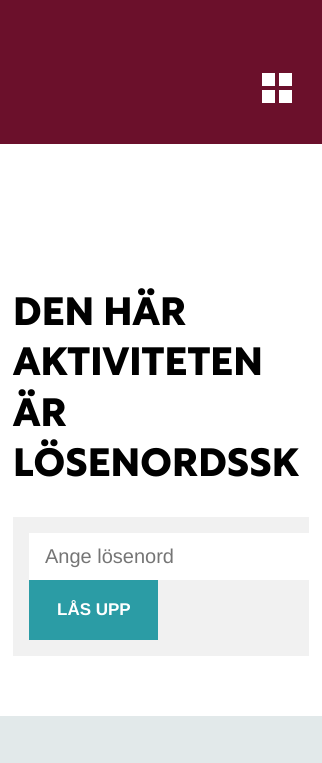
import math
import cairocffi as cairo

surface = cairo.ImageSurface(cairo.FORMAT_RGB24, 322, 763)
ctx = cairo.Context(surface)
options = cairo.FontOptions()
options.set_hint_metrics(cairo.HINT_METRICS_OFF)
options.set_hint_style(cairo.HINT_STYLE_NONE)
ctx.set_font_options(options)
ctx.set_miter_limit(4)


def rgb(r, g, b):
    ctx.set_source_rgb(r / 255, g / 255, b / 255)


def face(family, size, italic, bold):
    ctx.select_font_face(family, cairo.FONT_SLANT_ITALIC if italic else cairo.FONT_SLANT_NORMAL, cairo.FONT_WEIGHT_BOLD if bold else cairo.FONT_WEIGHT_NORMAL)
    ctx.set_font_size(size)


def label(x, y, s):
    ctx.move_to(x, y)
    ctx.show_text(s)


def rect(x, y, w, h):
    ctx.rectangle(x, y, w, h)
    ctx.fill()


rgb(255, 255, 255)
ctx.paint()
rgb(107, 16, 43)
rect(0, 0, 322, 144)
rgb(255, 255, 255)
rect(279, 73, 13, 13)
rect(262, 73, 13, 13)
rect(279, 90, 13, 13)
rect(262, 90, 13, 13)
face('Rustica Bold', 38.75, 0, 1)
rgb(0, 0, 0)
label(13, 325, 'DEN HÄR')
label(13, 375, 'AKTIVITETEN')
label(13, 426, 'ÄR')
label(13, 476, 'LÖSENORDSSK')
rgb(241, 241, 241)
rect(13, 517, 296, 139)
rgb(255, 255, 255)
rect(29, 533, 280, 47)
face('Liberation Sans', 20, 0, 0)
rgb(117, 117, 117)
label(45, 563, 'Ange lösenord')
rgb(43, 156, 165)
rect(29, 580, 129, 60)
face('Liberation Sans', 17, 0, 1)
rgb(255, 255, 255)
label(57, 615, 'LÅS UPP')
rgb(226, 233, 234)
rect(0, 716, 322, 47)
surface.write_to_png('render.png')
